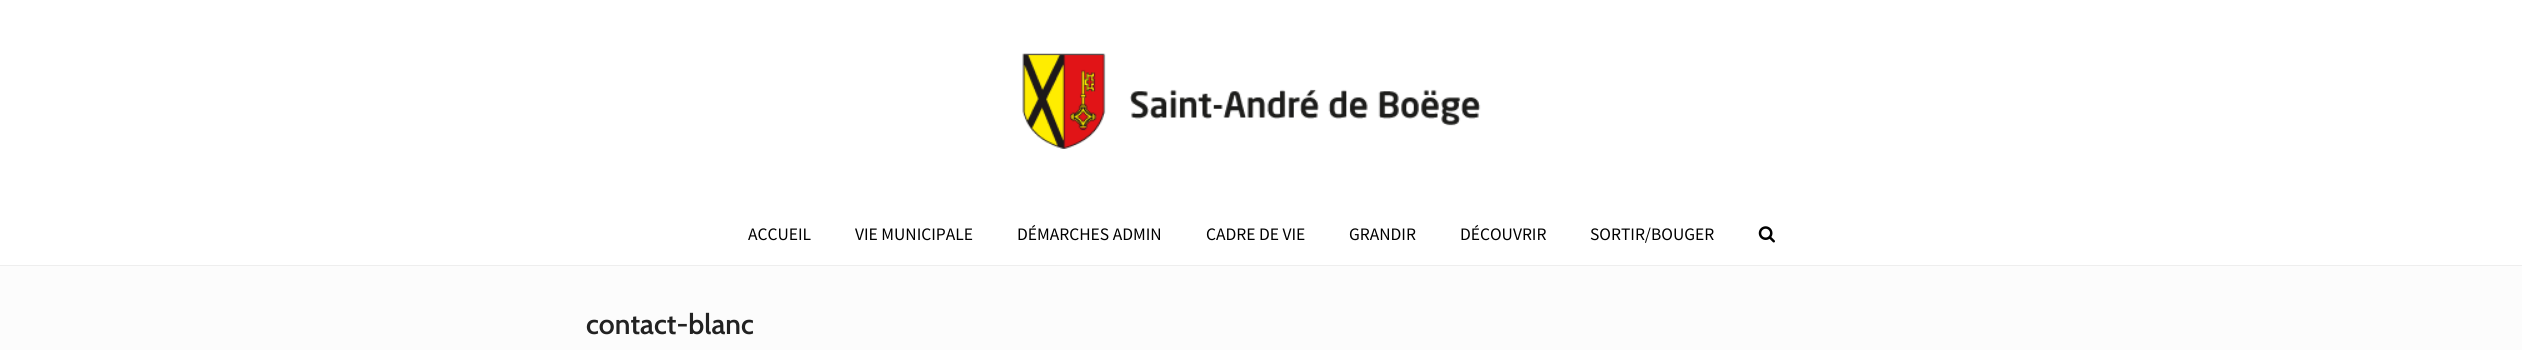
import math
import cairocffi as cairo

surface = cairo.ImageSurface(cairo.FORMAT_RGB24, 2522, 350)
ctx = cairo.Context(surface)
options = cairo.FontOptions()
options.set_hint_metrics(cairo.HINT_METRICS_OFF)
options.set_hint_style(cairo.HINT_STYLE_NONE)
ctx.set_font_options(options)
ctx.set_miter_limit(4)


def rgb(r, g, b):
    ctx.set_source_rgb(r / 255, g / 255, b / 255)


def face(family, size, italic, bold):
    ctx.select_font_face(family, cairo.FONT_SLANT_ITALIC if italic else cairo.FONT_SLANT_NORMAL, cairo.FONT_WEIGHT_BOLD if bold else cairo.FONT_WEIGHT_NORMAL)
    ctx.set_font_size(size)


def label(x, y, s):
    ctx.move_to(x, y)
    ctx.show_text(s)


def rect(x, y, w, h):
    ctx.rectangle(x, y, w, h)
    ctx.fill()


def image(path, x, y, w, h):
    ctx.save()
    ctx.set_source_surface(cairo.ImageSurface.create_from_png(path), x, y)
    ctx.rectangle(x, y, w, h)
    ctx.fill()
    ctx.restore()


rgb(255, 255, 255)
ctx.paint()
image('image0.png', 1022, 53, 459, 96)
face('Source Sans Pro', 17.5, 0, 0)
rgb(0, 0, 0)
label(748, 240, 'ACCUEIL')
label(855, 240, 'VIE MUNICIPALE')
label(1017, 240, 'DÉMARCHES ADMIN')
label(1206, 240, 'CADRE DE VIE')
label(1349, 240, 'GRANDIR')
label(1460, 240, 'DÉCOUVRIR')
label(1590, 240, 'SORTIR/BOUGER')
image('image1.png', 1758, 226, 17, 17)
rgb(252, 252, 252)
rect(0, 266, 2522, 84)
rgb(238, 238, 238)
rect(0, 265, 2522, 1)
face('Cabin SemiBold', 28.25, 0, 0)
rgb(34, 34, 34)
label(586, 334, 'contact-blanc')
surface.write_to_png('render.png')
